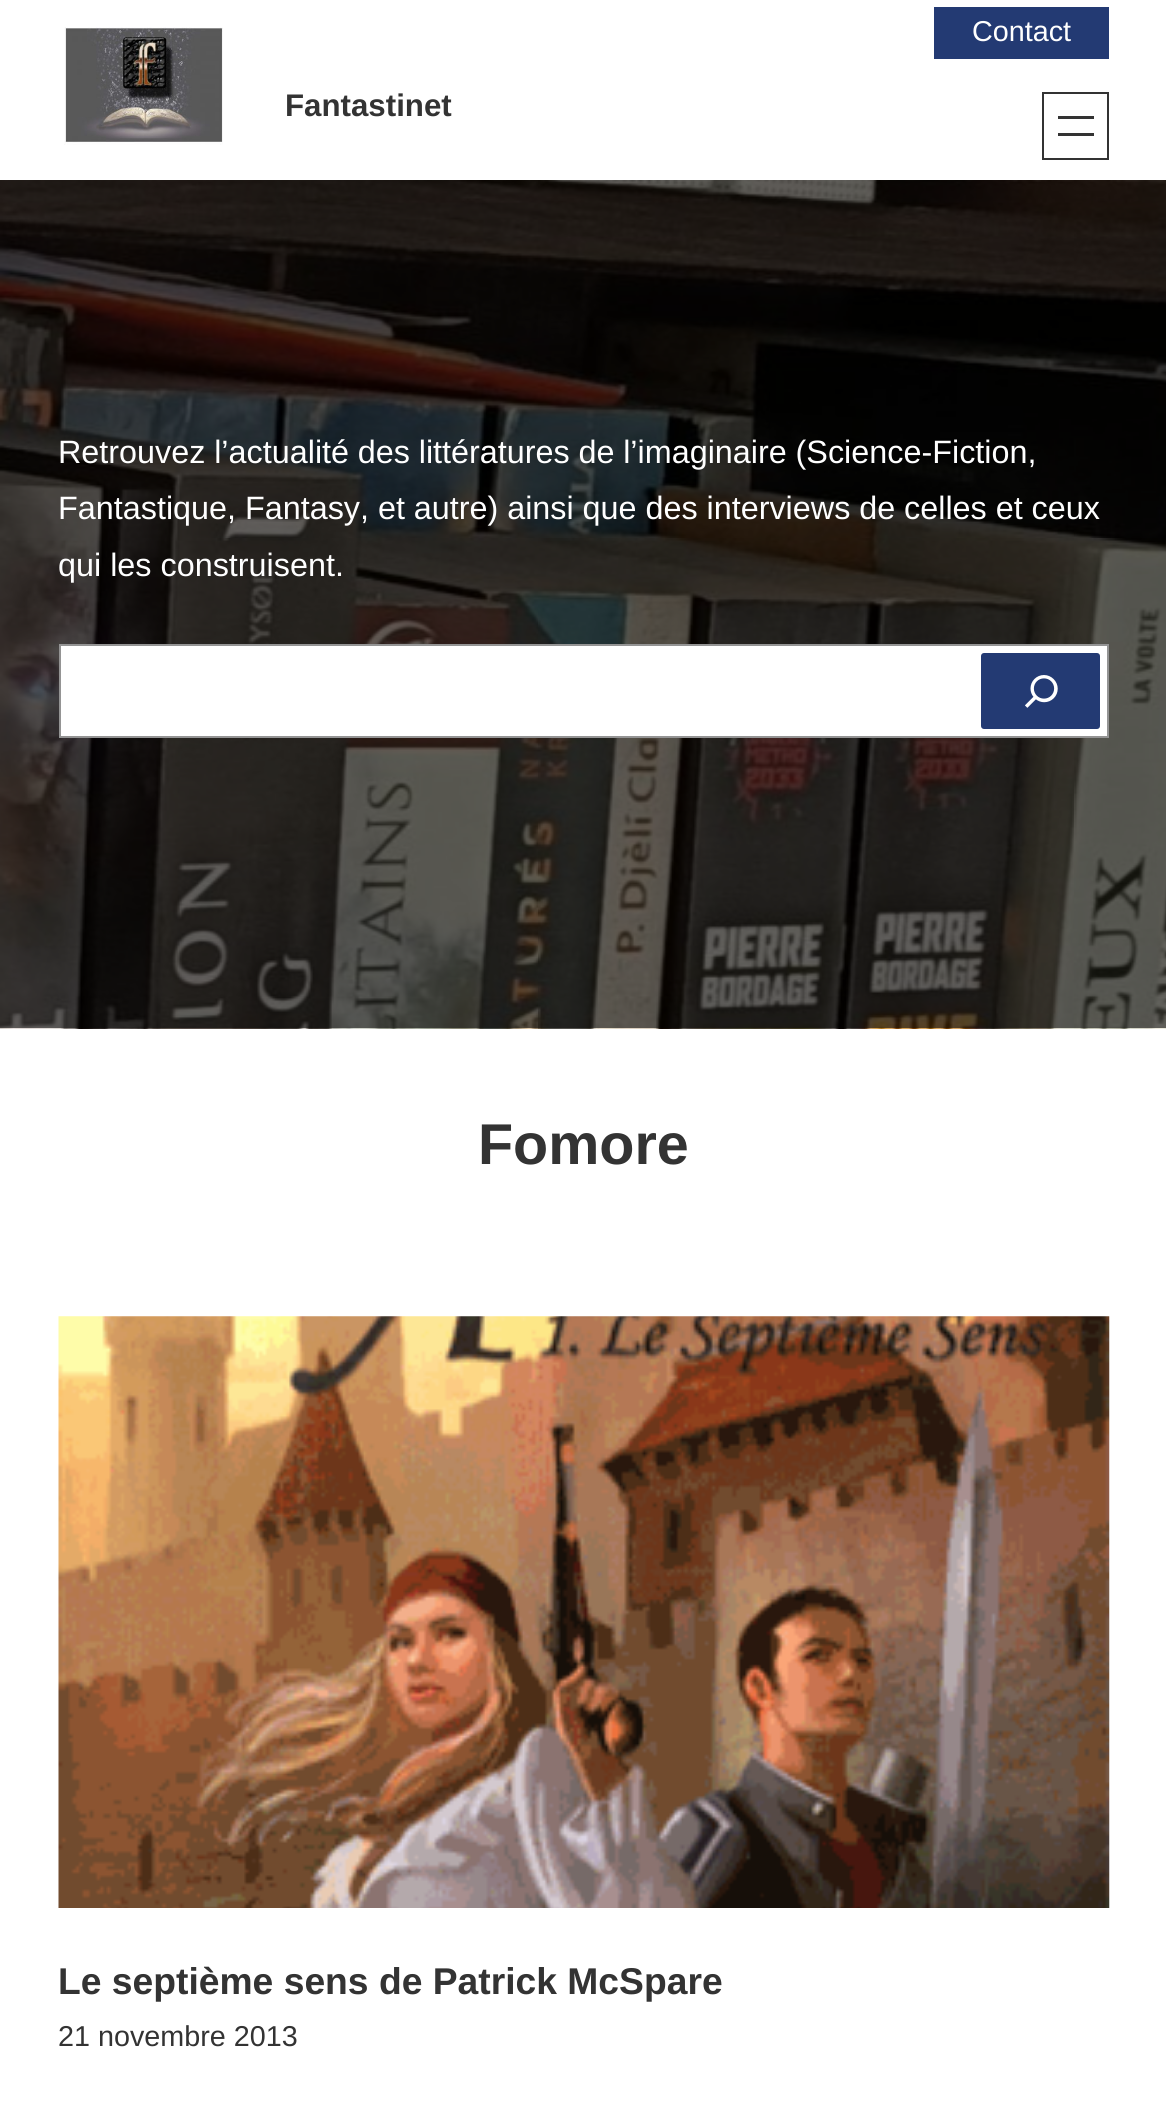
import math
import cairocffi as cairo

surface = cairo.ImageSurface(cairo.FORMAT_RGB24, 1166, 2117)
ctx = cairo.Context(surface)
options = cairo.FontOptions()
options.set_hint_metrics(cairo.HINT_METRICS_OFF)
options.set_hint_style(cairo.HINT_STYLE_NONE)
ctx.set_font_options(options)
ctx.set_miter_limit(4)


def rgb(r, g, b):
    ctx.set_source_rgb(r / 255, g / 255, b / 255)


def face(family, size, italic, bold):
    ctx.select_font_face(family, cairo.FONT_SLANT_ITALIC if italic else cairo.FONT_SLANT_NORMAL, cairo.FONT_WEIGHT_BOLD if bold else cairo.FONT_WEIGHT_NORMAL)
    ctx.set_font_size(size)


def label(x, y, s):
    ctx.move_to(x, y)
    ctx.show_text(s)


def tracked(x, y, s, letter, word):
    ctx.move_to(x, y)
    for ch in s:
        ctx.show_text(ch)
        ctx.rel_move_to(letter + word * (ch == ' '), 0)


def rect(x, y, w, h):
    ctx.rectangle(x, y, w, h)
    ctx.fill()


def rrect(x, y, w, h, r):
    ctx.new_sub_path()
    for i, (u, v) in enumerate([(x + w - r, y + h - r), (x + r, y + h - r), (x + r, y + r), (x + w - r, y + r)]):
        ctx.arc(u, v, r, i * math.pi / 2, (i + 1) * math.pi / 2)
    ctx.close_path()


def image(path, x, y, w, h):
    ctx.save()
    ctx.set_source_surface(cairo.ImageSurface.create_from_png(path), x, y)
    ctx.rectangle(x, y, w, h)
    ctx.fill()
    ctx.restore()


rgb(255, 255, 255)
ctx.paint()
rgb(35, 58, 115)
rect(934, 7, 175, 52)
face('Liberation Sans', 28.75, 0, 0)
rgb(255, 255, 255)
label(972, 41, 'Contact')
ctx.rectangle(1043, 93, 65, 66)
rgb(51, 51, 51)
ctx.stroke()
rect(1058, 116, 36, 3)
rect(1058, 133, 36, 3)
image('image0.png', 64, 27, 159, 118)
face('Liberation Sans', 31.25, 0, 1)
label(285, 116, 'Fantastinet')
image('image1.png', 0, 180, 1166, 849)
face('Liberation Sans', 32.35, 0, 0)
rgb(255, 255, 255)
tracked(58, 463, 'Retrouvez l’actualité des littératures de l’imaginaire (Science-Fiction,', 0, -0.25)
tracked(58, 519, 'Fantastique, Fantasy, et autre) ainsi que des interviews de celles et ceux', 0, -0.1)
label(58, 576, 'qui les construisent.')
ctx.rectangle(60, 645, 1048, 92)
ctx.fill_preserve()
rgb(148, 148, 148)
ctx.stroke()
rgb(35, 58, 115)
rrect(981, 653, 119, 76, 3)
ctx.fill()
image('image2.png', 1025, 675, 33, 33)
face('Liberation Sans', 57.5, 0, 1)
rgb(51, 51, 51)
label(478, 1164, 'Fomore')
image('image3.png', 58, 1316, 1052, 592)
face('Liberation Sans', 37.25, 0, 1)
label(58, 1994, 'Le septième sens de Patrick McSpare')
face('Liberation Sans', 28.75, 0, 0)
label(58, 2046, '21 novembre 2013')
surface.write_to_png('render.png')
